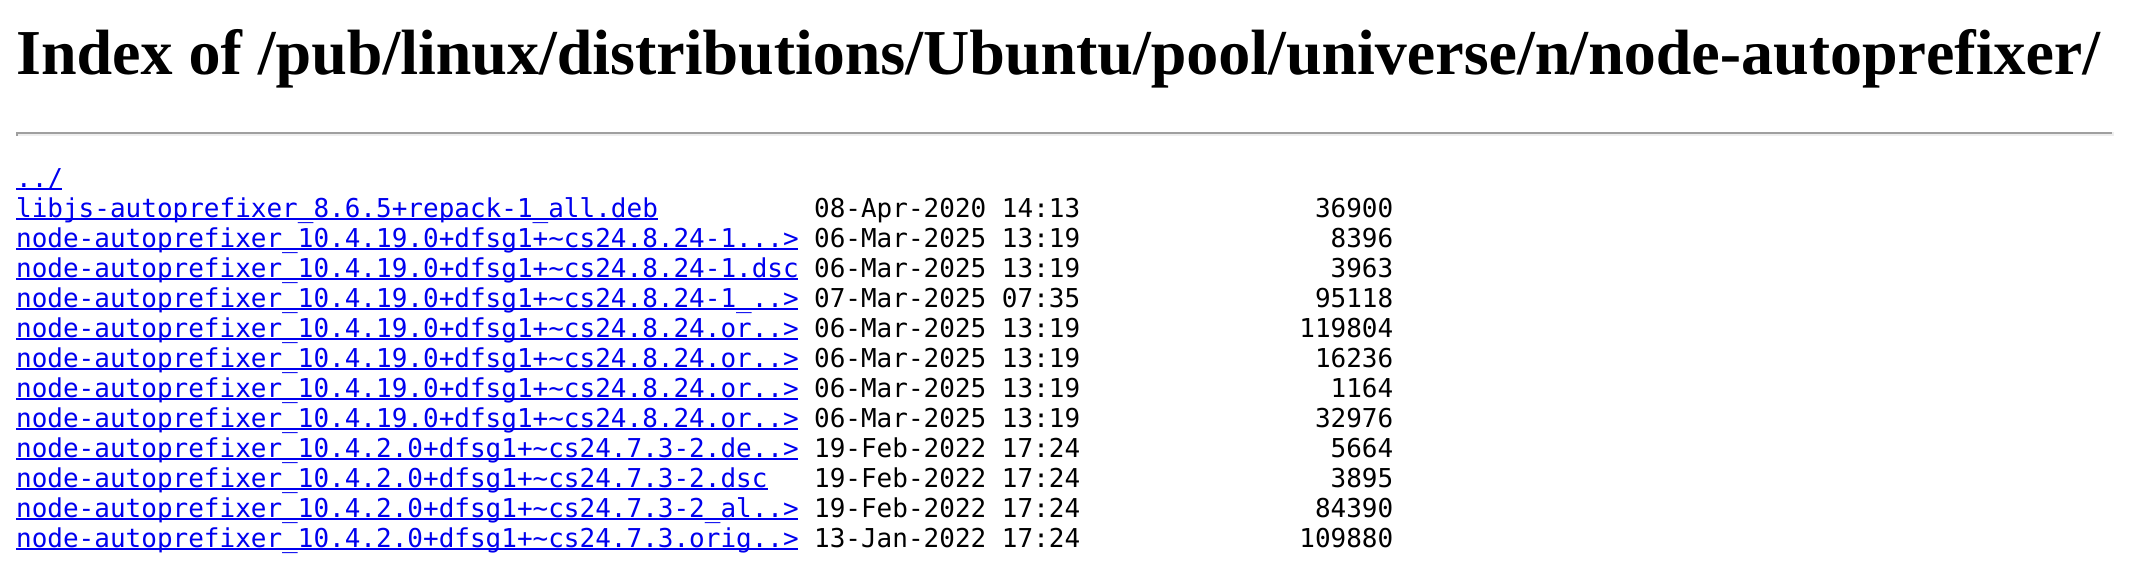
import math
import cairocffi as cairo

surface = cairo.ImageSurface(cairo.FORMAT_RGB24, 2129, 566)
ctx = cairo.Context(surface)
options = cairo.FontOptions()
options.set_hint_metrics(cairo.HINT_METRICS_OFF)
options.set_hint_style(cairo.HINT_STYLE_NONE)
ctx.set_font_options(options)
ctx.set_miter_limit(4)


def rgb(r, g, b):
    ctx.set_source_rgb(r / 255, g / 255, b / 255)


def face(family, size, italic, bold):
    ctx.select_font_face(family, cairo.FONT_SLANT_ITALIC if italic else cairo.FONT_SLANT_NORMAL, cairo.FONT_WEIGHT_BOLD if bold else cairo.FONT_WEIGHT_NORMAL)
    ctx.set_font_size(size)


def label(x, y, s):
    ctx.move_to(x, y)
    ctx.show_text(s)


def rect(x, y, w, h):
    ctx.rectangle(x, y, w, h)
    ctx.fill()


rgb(255, 255, 255)
ctx.paint()
face('Liberation Serif', 64, 0, 1)
rgb(0, 0, 0)
label(16, 74, 'Index of /pub/linux/distributions/Ubuntu/pool/universe/n/node-autoprefixer/')
rgb(159, 159, 159)
rect(16, 132, 2098, 2)
rgb(238, 238, 238)
rect(2112, 132, 2, 4)
rect(16, 134, 2098, 2)
rgb(159, 159, 159)
rect(16, 132, 2, 4)
rgb(0, 0, 238)
rect(16, 188, 46, 2)
face('DejaVu Sans Mono', 26, 0, 0)
label(16, 187, '../')
rect(16, 218, 642, 2)
label(16, 217, 'libjs-autoprefixer_8.6.5+repack-1_all.deb')
rgb(0, 0, 0)
label(814, 217, '08-Apr-2020 14:13               36900')
rgb(0, 0, 238)
rect(16, 248, 782, 2)
label(16, 247, 'node-autoprefixer_10.4.19.0+dfsg1+~cs24.8.24-1...>')
rgb(0, 0, 0)
label(814, 247, '06-Mar-2025 13:19                8396')
rgb(0, 0, 238)
rect(16, 278, 782, 2)
label(16, 277, 'node-autoprefixer_10.4.19.0+dfsg1+~cs24.8.24-1.dsc')
rgb(0, 0, 0)
label(814, 277, '06-Mar-2025 13:19                3963')
rgb(0, 0, 238)
rect(16, 308, 782, 2)
label(16, 307, 'node-autoprefixer_10.4.19.0+dfsg1+~cs24.8.24-1_..>')
rgb(0, 0, 0)
label(814, 307, '07-Mar-2025 07:35               95118')
rgb(0, 0, 238)
rect(16, 338, 782, 2)
label(16, 337, 'node-autoprefixer_10.4.19.0+dfsg1+~cs24.8.24.or..>')
rgb(0, 0, 0)
label(814, 337, '06-Mar-2025 13:19              119804')
rgb(0, 0, 238)
rect(16, 368, 782, 2)
label(16, 367, 'node-autoprefixer_10.4.19.0+dfsg1+~cs24.8.24.or..>')
rgb(0, 0, 0)
label(814, 367, '06-Mar-2025 13:19               16236')
rgb(0, 0, 238)
rect(16, 398, 782, 2)
label(16, 397, 'node-autoprefixer_10.4.19.0+dfsg1+~cs24.8.24.or..>')
rgb(0, 0, 0)
label(814, 397, '06-Mar-2025 13:19                1164')
rgb(0, 0, 238)
rect(16, 428, 782, 2)
label(16, 427, 'node-autoprefixer_10.4.19.0+dfsg1+~cs24.8.24.or..>')
rgb(0, 0, 0)
label(814, 427, '06-Mar-2025 13:19               32976')
rgb(0, 0, 238)
rect(16, 458, 782, 2)
label(16, 457, 'node-autoprefixer_10.4.2.0+dfsg1+~cs24.7.3-2.de..>')
rgb(0, 0, 0)
label(814, 457, '19-Feb-2022 17:24                5664')
rgb(0, 0, 238)
rect(16, 488, 752, 2)
label(16, 487, 'node-autoprefixer_10.4.2.0+dfsg1+~cs24.7.3-2.dsc')
rgb(0, 0, 0)
label(814, 487, '19-Feb-2022 17:24                3895')
rgb(0, 0, 238)
rect(16, 518, 782, 2)
label(16, 517, 'node-autoprefixer_10.4.2.0+dfsg1+~cs24.7.3-2_al..>')
rgb(0, 0, 0)
label(814, 517, '19-Feb-2022 17:24               84390')
rgb(0, 0, 238)
rect(16, 548, 782, 2)
label(16, 547, 'node-autoprefixer_10.4.2.0+dfsg1+~cs24.7.3.orig..>')
rgb(0, 0, 0)
label(814, 547, '13-Jan-2022 17:24              109880')
surface.write_to_png('render.png')
